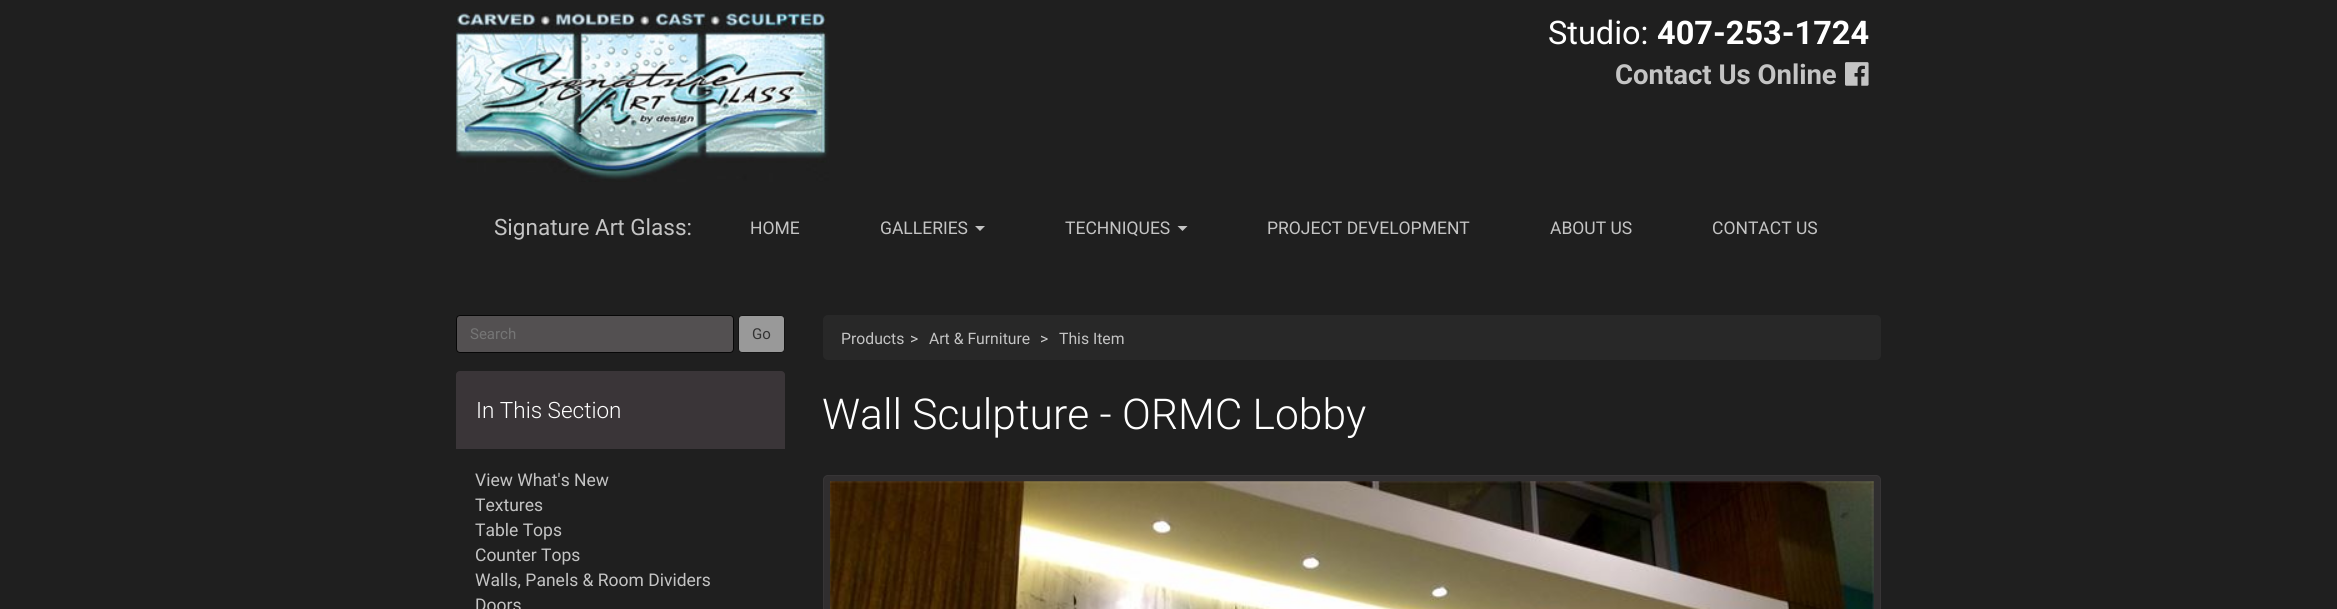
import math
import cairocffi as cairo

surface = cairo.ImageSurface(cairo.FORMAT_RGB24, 2337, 609)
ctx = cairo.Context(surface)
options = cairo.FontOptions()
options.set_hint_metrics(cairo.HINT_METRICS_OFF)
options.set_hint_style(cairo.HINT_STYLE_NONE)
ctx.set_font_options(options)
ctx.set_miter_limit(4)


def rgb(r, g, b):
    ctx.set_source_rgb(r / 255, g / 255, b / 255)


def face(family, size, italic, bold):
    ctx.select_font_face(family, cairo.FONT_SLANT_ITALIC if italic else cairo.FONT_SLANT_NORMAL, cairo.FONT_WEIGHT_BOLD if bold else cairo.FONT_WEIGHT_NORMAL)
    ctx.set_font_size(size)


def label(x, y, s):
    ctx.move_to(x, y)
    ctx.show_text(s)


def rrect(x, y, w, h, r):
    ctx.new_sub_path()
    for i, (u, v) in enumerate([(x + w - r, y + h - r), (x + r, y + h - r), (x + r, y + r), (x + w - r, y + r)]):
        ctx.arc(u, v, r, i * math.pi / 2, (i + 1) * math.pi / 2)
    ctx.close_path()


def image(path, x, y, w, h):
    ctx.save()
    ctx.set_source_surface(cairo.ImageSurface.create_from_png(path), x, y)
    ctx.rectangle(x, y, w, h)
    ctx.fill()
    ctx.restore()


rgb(31, 31, 31)
ctx.paint()
image('image0.png', 456, 12, 373, 170)
face('Roboto', 32.5, 0, 0)
rgb(255, 255, 255)
label(1548, 44, 'Studio:')
face('Roboto', 32.5, 0, 1)
label(1657, 44, '407-253-1724')
face('Roboto', 27.5, 0, 1)
rgb(196, 196, 196)
label(1615, 84, 'Contact Us Online')
image('image1.png', 1845, 62, 24, 24)
face('Roboto', 22.5, 0, 0)
label(494, 235, 'Signature Art Glass:')
face('Roboto', 17.5, 0, 0)
label(750, 234, 'HOME')
label(880, 234, 'GALLERIES')
ctx.new_path()
ctx.move_to(975, 226)
ctx.line_to(985, 226)
ctx.line_to(980, 231)
ctx.close_path()
ctx.fill()
label(1065, 234, 'TECHNIQUES')
ctx.new_path()
ctx.move_to(1177.5, 226)
ctx.line_to(1187.5, 226)
ctx.line_to(1182.5, 231)
ctx.close_path()
ctx.fill()
label(1267, 234, 'PROJECT DEVELOPMENT')
label(1550, 234, 'ABOUT US')
label(1712, 234, 'CONTACT US')
rgb(83, 80, 81)
rrect(456.5, 315.5, 277, 37, 3.5)
ctx.fill_preserve()
rgb(7, 7, 7)
ctx.set_line_width(1)
ctx.stroke()
face('Roboto', 15, 0, 0)
rgb(117, 117, 117)
label(470, 339, 'Search')
rgb(153, 153, 153)
rrect(738.5, 315.5, 46, 37, 3.5)
ctx.fill_preserve()
rgb(20, 20, 20)
ctx.stroke()
rgb(51, 51, 51)
label(752, 339, 'Go')
rgb(58, 53, 56)
ctx.new_path()
ctx.move_to(460, 371.5)
ctx.line_to(781, 371.5)
ctx.curve_to(783, 371.5, 784.5, 373, 784.5, 375)
ctx.line_to(784.5, 448.5)
ctx.line_to(456.5, 448.5)
ctx.line_to(456.5, 375)
ctx.curve_to(456.5, 373, 458, 371.5, 460, 371.5)
ctx.close_path()
ctx.fill_preserve()
ctx.stroke()
face('Roboto Light', 22.5, 0, 0)
rgb(255, 255, 255)
label(476, 418, 'In This Section')
face('Roboto', 17.5, 0, 0)
rgb(196, 196, 196)
label(475, 486, 'View What\'s New')
label(475, 511, 'Textures')
label(475, 536, 'Table Tops')
label(475, 561, 'Counter Tops')
label(475, 586, 'Walls, Panels & Room Dividers')
label(475, 611, 'Doors')
rgb(40, 40, 40)
rrect(823, 315, 1058, 45, 5)
ctx.fill()
face('Roboto', 15.75, 0, 0)
rgb(196, 196, 196)
label(841, 344, 'Products')
rgb(204, 204, 204)
label(910, 344, '>')
rgb(196, 196, 196)
label(929, 344, 'Art & Furniture')
rgb(204, 204, 204)
label(1040, 344, '>')
rgb(196, 196, 196)
label(1059, 344, 'This Item')
face('Roboto Light', 42.5, 0, 0)
rgb(255, 255, 255)
label(822, 429, 'Wall Sculpture - ORMC Lobby')
rgb(48, 46, 47)
rrect(823.5, 475.5, 1057, 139, 4.5)
ctx.fill_preserve()
rgb(55, 53, 54)
ctx.stroke()
image('image2.png', 830, 481, 1044, 128)
surface.write_to_png('render.png')
